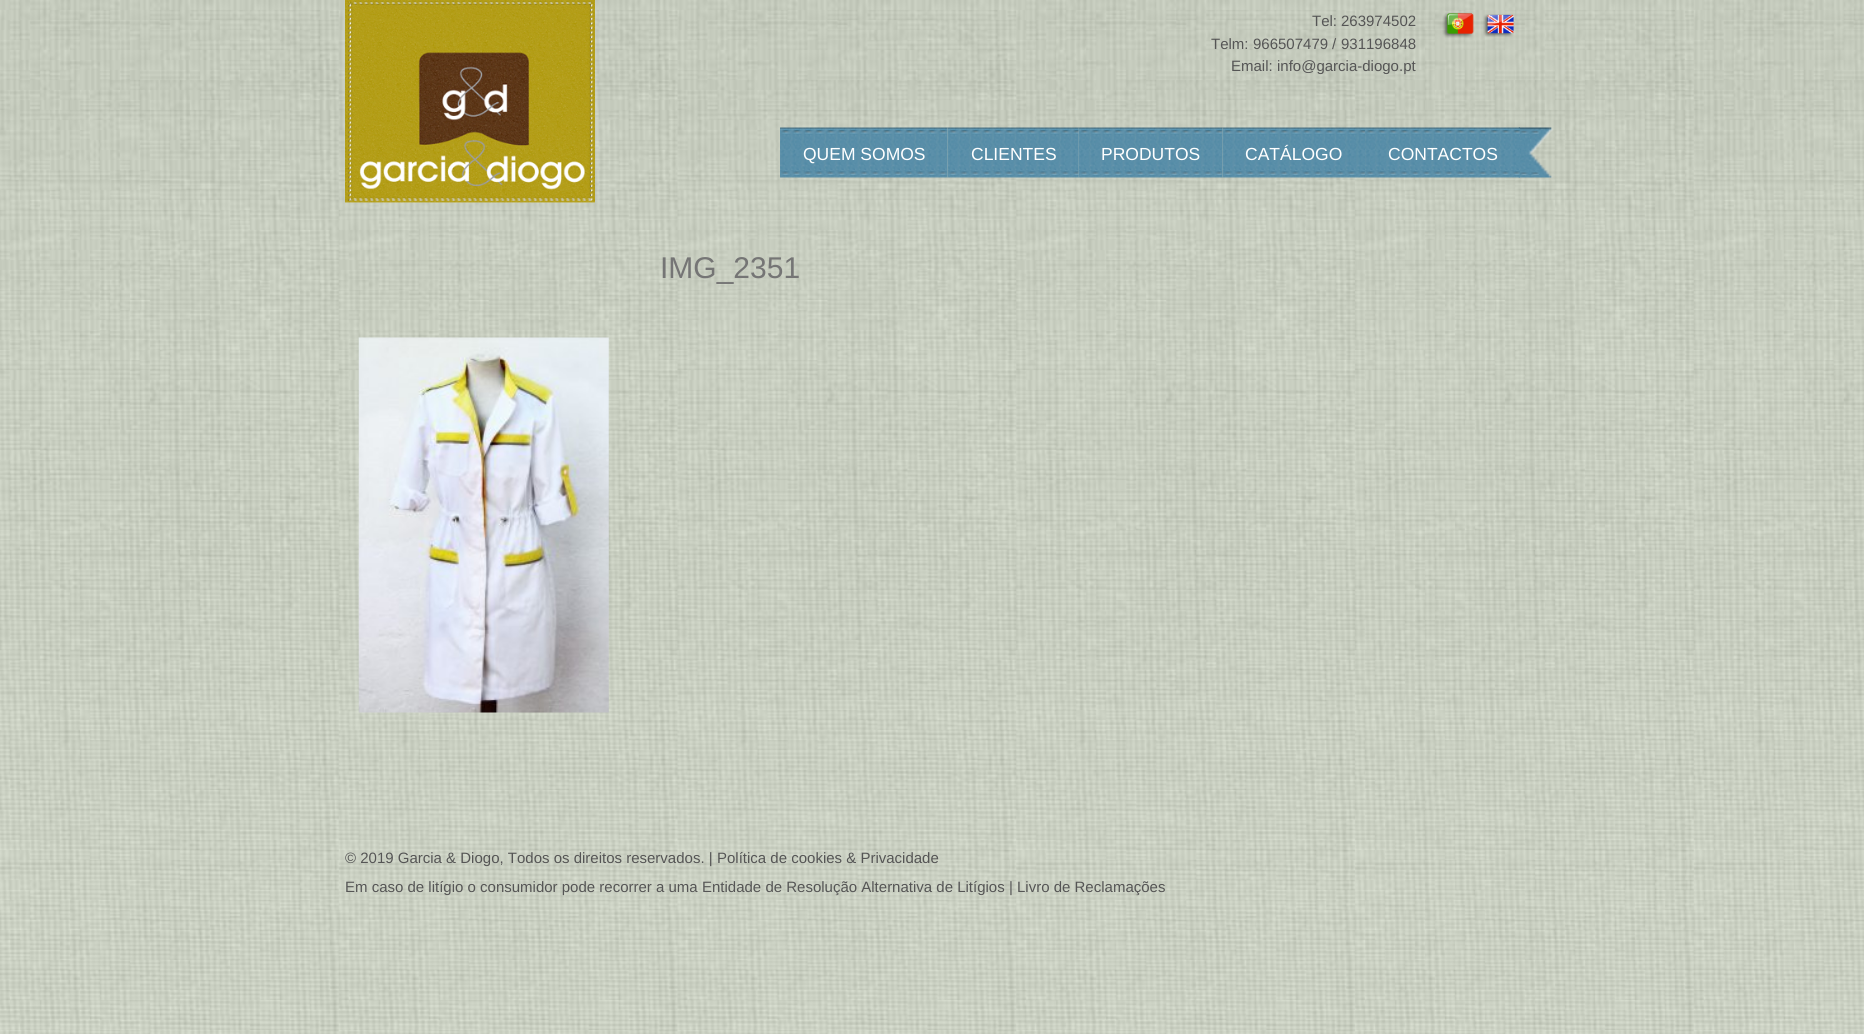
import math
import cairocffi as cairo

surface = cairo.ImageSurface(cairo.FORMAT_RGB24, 1864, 1034)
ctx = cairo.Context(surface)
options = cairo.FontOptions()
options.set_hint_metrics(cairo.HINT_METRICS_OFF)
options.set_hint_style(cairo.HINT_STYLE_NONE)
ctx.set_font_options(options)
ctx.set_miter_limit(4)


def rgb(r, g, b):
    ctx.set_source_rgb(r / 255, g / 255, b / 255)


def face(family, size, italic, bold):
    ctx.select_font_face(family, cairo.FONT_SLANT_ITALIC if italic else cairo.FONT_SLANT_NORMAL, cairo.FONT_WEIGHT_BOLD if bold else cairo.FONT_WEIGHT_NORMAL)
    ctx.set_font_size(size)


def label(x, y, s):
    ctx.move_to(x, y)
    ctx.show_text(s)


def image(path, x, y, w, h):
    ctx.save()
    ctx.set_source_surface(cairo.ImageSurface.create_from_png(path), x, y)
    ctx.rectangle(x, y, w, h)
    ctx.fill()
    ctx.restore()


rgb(255, 255, 255)
ctx.paint()
image('image0.png', 0, 0, 1864, 1034)
image('image1.png', 345, 0, 250, 203)
face('Liberation Sans', 15, 0, 0)
rgb(85, 85, 85)
label(1312, 26, 'Tel:')
label(1341, 26, '263974502')
label(1211, 49, 'Telm:')
label(1253, 49, '966507479')
label(1332, 49, '/')
label(1341, 49, '931196848')
label(1231, 71, 'Email:')
label(1277, 71, 'info@garcia-diogo.pt')
image('image2.png', 1442, 12, 32, 26)
image('image3.png', 1483, 14, 31, 23)
image('image4.png', 1518, 127, 35, 51)
image('image5.png', 780, 127, 168, 51)
face('Liberation Sans', 17.5, 0, 0)
rgb(255, 255, 255)
label(803, 160, 'QUEM SOMOS')
image('image6.png', 947, 127, 132, 51)
label(971, 160, 'CLIENTES')
image('image7.png', 1078, 127, 145, 51)
label(1101, 160, 'PRODUTOS')
image('image8.png', 1222, 127, 143, 51)
label(1245, 160, 'CATÁLOGO')
image('image9.png', 1365, 127, 155, 51)
label(1388, 160, 'CONTACTOS')
face('Liberation Sans', 30, 0, 0)
rgb(117, 117, 117)
label(660, 278, 'IMG_2351')
image('image10.png', 358, 337, 251, 376)
face('Liberation Sans', 15, 0, 0)
rgb(85, 85, 85)
label(345, 863, '© 2019 Garcia & Diogo, Todos os direitos reservados. |')
label(717, 863, 'Política de cookies & Privacidade')
label(345, 892, 'Em caso de litígio o consumidor pode recorrer a uma')
label(702, 892, 'Entidade de Resolução Alternativa de Litígios')
label(1009, 892, '|')
label(1017, 892, 'Livro de Reclamações')
surface.write_to_png('render.png')
